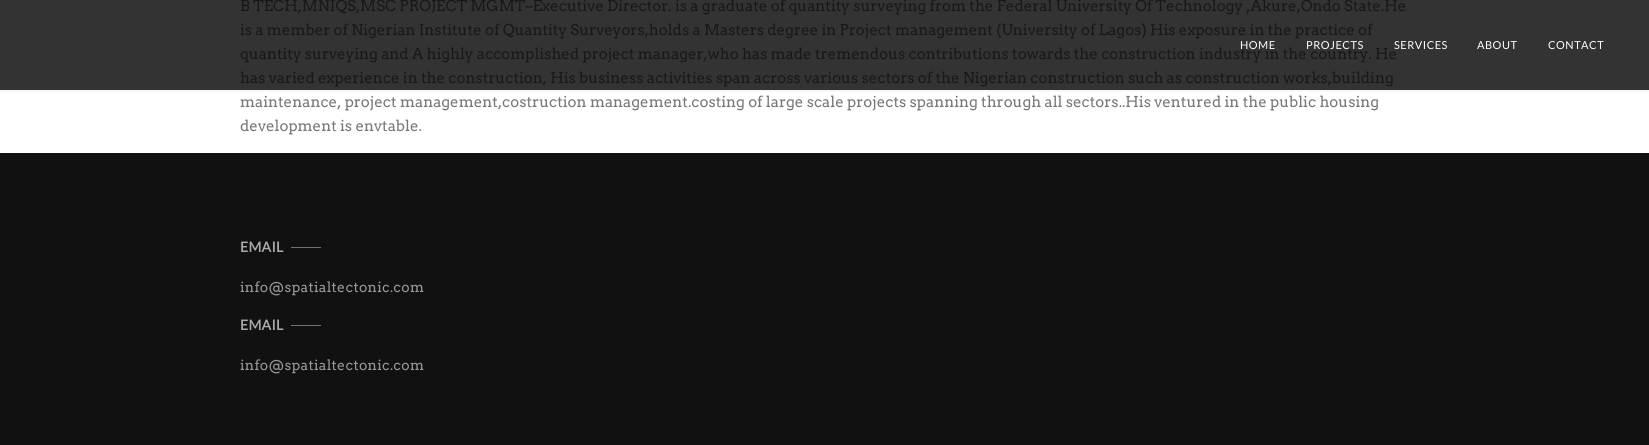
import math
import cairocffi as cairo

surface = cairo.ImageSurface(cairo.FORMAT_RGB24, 1649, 445)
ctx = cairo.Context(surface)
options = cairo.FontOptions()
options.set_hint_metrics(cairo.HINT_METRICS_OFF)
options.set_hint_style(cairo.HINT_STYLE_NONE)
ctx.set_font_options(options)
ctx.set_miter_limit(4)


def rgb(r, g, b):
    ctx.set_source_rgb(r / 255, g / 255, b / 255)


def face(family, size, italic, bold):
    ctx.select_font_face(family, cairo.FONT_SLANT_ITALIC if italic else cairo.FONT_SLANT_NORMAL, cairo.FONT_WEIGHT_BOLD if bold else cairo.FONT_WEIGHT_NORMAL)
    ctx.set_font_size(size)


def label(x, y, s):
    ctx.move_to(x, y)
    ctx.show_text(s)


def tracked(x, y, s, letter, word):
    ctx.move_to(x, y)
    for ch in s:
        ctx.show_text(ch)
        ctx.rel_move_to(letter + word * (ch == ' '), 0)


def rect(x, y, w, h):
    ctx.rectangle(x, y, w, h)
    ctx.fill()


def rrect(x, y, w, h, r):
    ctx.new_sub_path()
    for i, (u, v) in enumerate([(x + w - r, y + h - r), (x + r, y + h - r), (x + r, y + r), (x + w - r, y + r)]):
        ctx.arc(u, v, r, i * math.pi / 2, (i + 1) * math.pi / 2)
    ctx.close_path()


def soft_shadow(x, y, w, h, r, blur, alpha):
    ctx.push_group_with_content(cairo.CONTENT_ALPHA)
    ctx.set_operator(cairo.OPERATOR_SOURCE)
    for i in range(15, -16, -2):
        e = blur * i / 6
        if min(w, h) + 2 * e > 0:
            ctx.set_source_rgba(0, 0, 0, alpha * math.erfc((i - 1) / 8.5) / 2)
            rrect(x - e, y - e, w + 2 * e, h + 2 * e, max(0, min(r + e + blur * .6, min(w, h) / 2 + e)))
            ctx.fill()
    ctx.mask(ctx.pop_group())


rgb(255, 255, 255)
ctx.paint()
rgb(51, 51, 51)
rect(0, 0, 1649, 90)
face('Arvo', 15, 0, 0)
rgb(24, 24, 24)
label(240, 11, 'B TECH,MNIQS,MSC PROJECT MGMT–Executive Director. is a graduate of quantity surveying from the Federal University Of Technology ,Akure,Ondo State.He')
label(240, 35, 'is a member of Nigerian Institute of Quantity Surveyors,holds a Masters degree in Project management (University of Lagos) His exposure in the practice of')
label(240, 59, 'quantity surveying and A highly accomplished project manager,who has made tremendous contributions towards the construction industry in the country. He')
label(240, 83, 'has varied experience in the construction, His business activities span across various sectors of the Nigerian construction such as construction works,building')
rgb(119, 119, 119)
label(240, 107, 'maintenance, project management,costruction management.costing of large scale projects spanning through all sectors..His ventured in the public housing')
label(240, 131, 'development is envtable.')
ctx.save()
ctx.rectangle(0, 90, 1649, 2)
ctx.clip()
rgb(0, 0, 0)
soft_shadow(0, 0, 1649, 90, 0, 2.5, 0.1)
ctx.restore()
face('Lato', 11, 0, 0)
rgb(255, 255, 255)
tracked(1240, 49, 'HOME', 0.5, 0)
tracked(1306, 49, 'PROJECTS', 0.5, 0)
tracked(1394, 49, 'SERVICES', 0.5, 0)
tracked(1477, 49, 'ABOUT', 0.5, 0)
tracked(1548, 49, 'CONTACT', 0.5, 0)
rgb(17, 17, 17)
rect(0, 153, 1649, 292)
face('Lato', 14, 0, 1)
rgb(170, 170, 170)
tracked(240, 252, 'EMAIL', 0.3, 0)
rgb(112, 112, 112)
rect(291, 247, 30, 1)
face('Arvo', 14, 0, 0)
rgb(153, 153, 153)
tracked(240, 292, 'info@spatialtectonic.com', 0.3, 0)
face('Lato', 14, 0, 1)
rgb(170, 170, 170)
tracked(240, 330, 'EMAIL', 0.3, 0)
rgb(112, 112, 112)
rect(291, 325, 30, 1)
face('Arvo', 14, 0, 0)
rgb(153, 153, 153)
tracked(240, 370, 'info@spatialtectonic.com', 0.3, 0)
surface.write_to_png('render.png')
